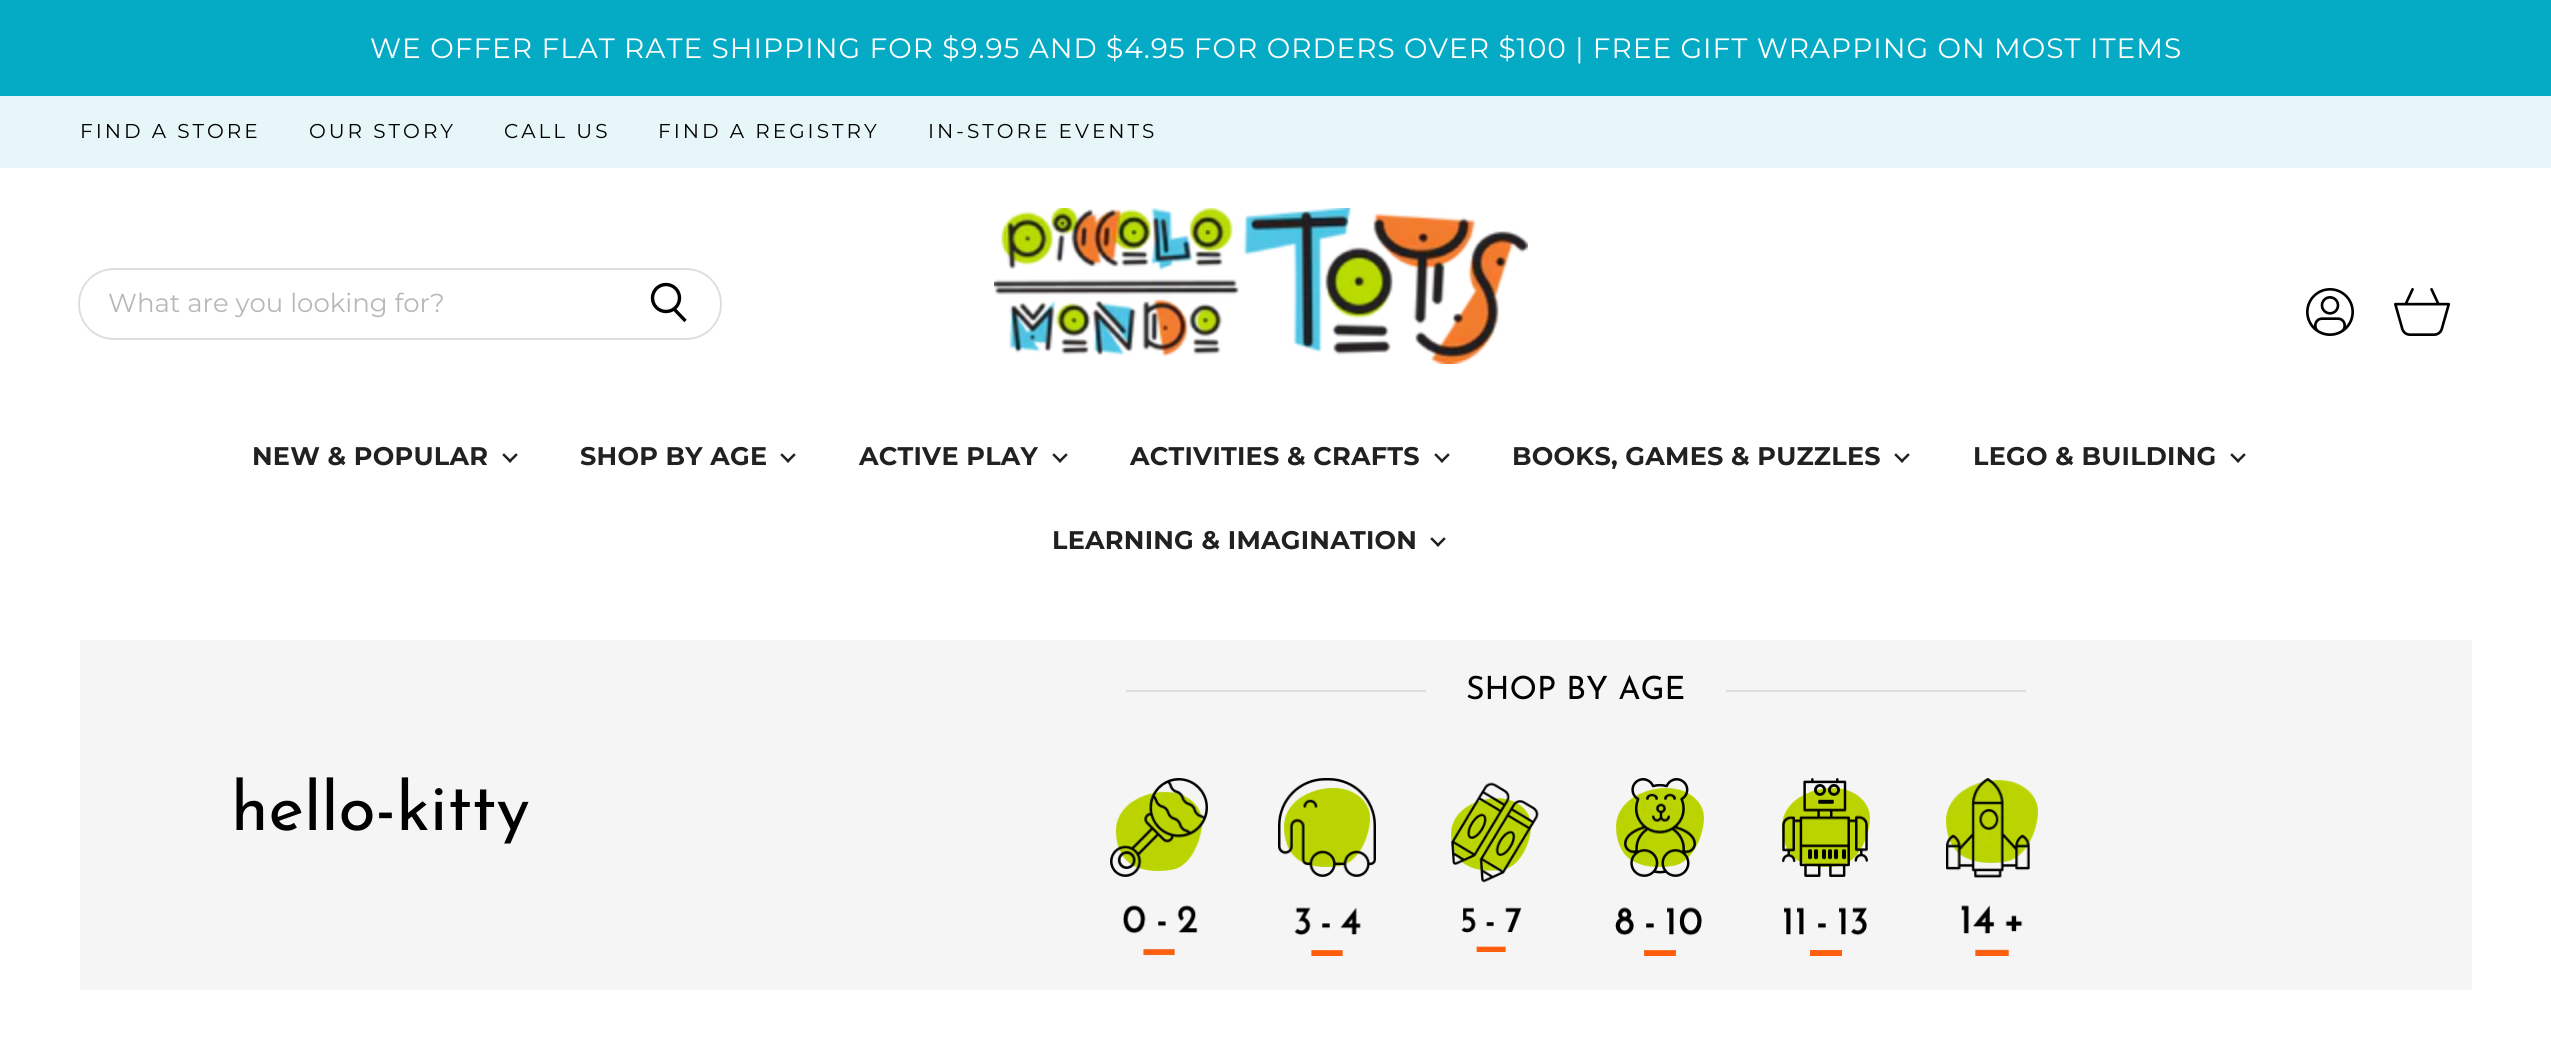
import math
import cairocffi as cairo

surface = cairo.ImageSurface(cairo.FORMAT_RGB24, 2551, 1051)
ctx = cairo.Context(surface)
options = cairo.FontOptions()
options.set_hint_metrics(cairo.HINT_METRICS_OFF)
options.set_hint_style(cairo.HINT_STYLE_NONE)
ctx.set_font_options(options)
ctx.set_miter_limit(4)


def rgb(r, g, b):
    ctx.set_source_rgb(r / 255, g / 255, b / 255)


def face(family, size, italic, bold):
    ctx.select_font_face(family, cairo.FONT_SLANT_ITALIC if italic else cairo.FONT_SLANT_NORMAL, cairo.FONT_WEIGHT_BOLD if bold else cairo.FONT_WEIGHT_NORMAL)
    ctx.set_font_size(size)


def label(x, y, s):
    ctx.move_to(x, y)
    ctx.show_text(s)


def tracked(x, y, s, letter, word):
    ctx.move_to(x, y)
    for ch in s:
        ctx.show_text(ch)
        ctx.rel_move_to(letter + word * (ch == ' '), 0)


def rect(x, y, w, h):
    ctx.rectangle(x, y, w, h)
    ctx.fill()


def image(path, x, y, w, h):
    ctx.save()
    ctx.set_source_surface(cairo.ImageSurface.create_from_png(path), x, y)
    ctx.rectangle(x, y, w, h)
    ctx.fill()
    ctx.restore()


rgb(255, 255, 255)
ctx.paint()
rgb(5, 171, 196)
rect(0, 0, 2551, 96)
face('Montserrat Thin', 28, 0, 0)
rgb(255, 255, 255)
tracked(370, 58, 'WE OFFER FLAT RATE SHIPPING FOR $9.95 AND $4.95 FOR ORDERS OVER $100 | FREE GIFT WRAPPING ON MOST ITEMS', 1, 0)
rgb(231, 246, 248)
rect(0, 96, 2551, 72)
face('Montserrat Thin', 20, 0, 0)
rgb(0, 0, 0)
tracked(80, 138, 'FIND A STORE', 3, 0)
tracked(309, 138, 'OUR STORY', 3, 0)
tracked(504, 138, 'CALL US', 3, 0)
tracked(658, 138, 'FIND A REGISTRY', 3, 0)
tracked(928, 138, 'IN-STORE EVENTS', 3, 0)
rgb(222, 222, 222)
ctx.set_fill_rule(cairo.FILL_RULE_EVEN_ODD)
ctx.new_path()
ctx.move_to(114, 268)
ctx.line_to(616, 268)
ctx.line_to(616, 340)
ctx.line_to(114, 340)
ctx.curve_to(94, 340, 78, 324, 78, 304)
ctx.curve_to(78, 284, 94, 268, 114, 268)
ctx.close_path()
ctx.move_to(114, 270)
ctx.line_to(616, 270)
ctx.line_to(616, 338)
ctx.line_to(114, 338)
ctx.curve_to(95, 338, 80, 323, 80, 304)
ctx.curve_to(80, 285, 95, 270, 114, 270)
ctx.close_path()
ctx.fill()
face('Montserrat Thin', 26, 0, 0)
rgb(184, 184, 184)
label(108, 312, 'What are you looking for?')
rgb(222, 222, 222)
ctx.new_path()
ctx.move_to(616, 268)
ctx.line_to(686, 268)
ctx.curve_to(706, 268, 722, 284, 722, 304)
ctx.curve_to(722, 324, 706, 340, 686, 340)
ctx.line_to(616, 340)
ctx.close_path()
ctx.move_to(616, 270)
ctx.line_to(686, 270)
ctx.curve_to(705, 270, 720, 285, 720, 304)
ctx.curve_to(720, 323, 705, 338, 686, 338)
ctx.line_to(616, 338)
ctx.close_path()
ctx.fill()
ctx.new_path()
ctx.move_to(685.5, 321)
ctx.line_to(674, 309)
rgb(0, 0, 0)
ctx.set_line_width(3.4)
ctx.stroke()
ctx.arc(666, 298, 13.5, 0, 2 * math.pi)
ctx.stroke()
image('image0.png', 994, 208, 534, 156)
image('image1.png', 2306, 288, 48, 48)
image('image2.png', 2394, 288, 57, 48)
face('Montserrat', 25.5, 0, 1)
rgb(33, 33, 33)
tracked(252, 465, 'NEW & POPULAR', 0.25, 0)
image('image3.png', 502, 453, 16, 10)
tracked(580, 465, 'SHOP BY AGE', 0.25, 0)
image('image3.png', 780, 453, 16, 10)
tracked(859, 465, 'ACTIVE PLAY', 0.25, 0)
image('image3.png', 1052, 453, 16, 10)
tracked(1130, 465, 'ACTIVITIES & CRAFTS', 0.25, 0)
image('image3.png', 1434, 453, 16, 10)
tracked(1512, 465, 'BOOKS, GAMES & PUZZLES', 0.25, 0)
image('image3.png', 1894, 453, 16, 10)
tracked(1973, 465, 'LEGO & BUILDING', 0.25, 0)
image('image3.png', 2230, 453, 16, 10)
tracked(1052, 549, 'LEARNING & IMAGINATION', 0.25, 0)
image('image3.png', 1430, 537, 16, 10)
rgb(245, 245, 245)
rect(80, 640, 2392, 350)
rgb(222, 222, 222)
rect(1126, 690, 300, 2)
face('Josefin Sans', 32, 0, 0)
rgb(0, 0, 0)
label(1466, 699, 'SHOP BY AGE')
rgb(222, 222, 222)
rect(1726, 690, 300, 2)
image('image4.png', 1110, 778, 98, 178)
image('image5.png', 1278, 778, 98, 178)
image('image6.png', 1451, 782, 88, 170)
image('image7.png', 1615, 778, 89, 178)
image('image8.png', 1782, 778, 88, 178)
image('image9.png', 1946, 778, 92, 178)
face('Josefin Sans', 68, 0, 0)
rgb(0, 0, 0)
label(231, 830, 'hello-kitty')
surface.write_to_png('render.png')
